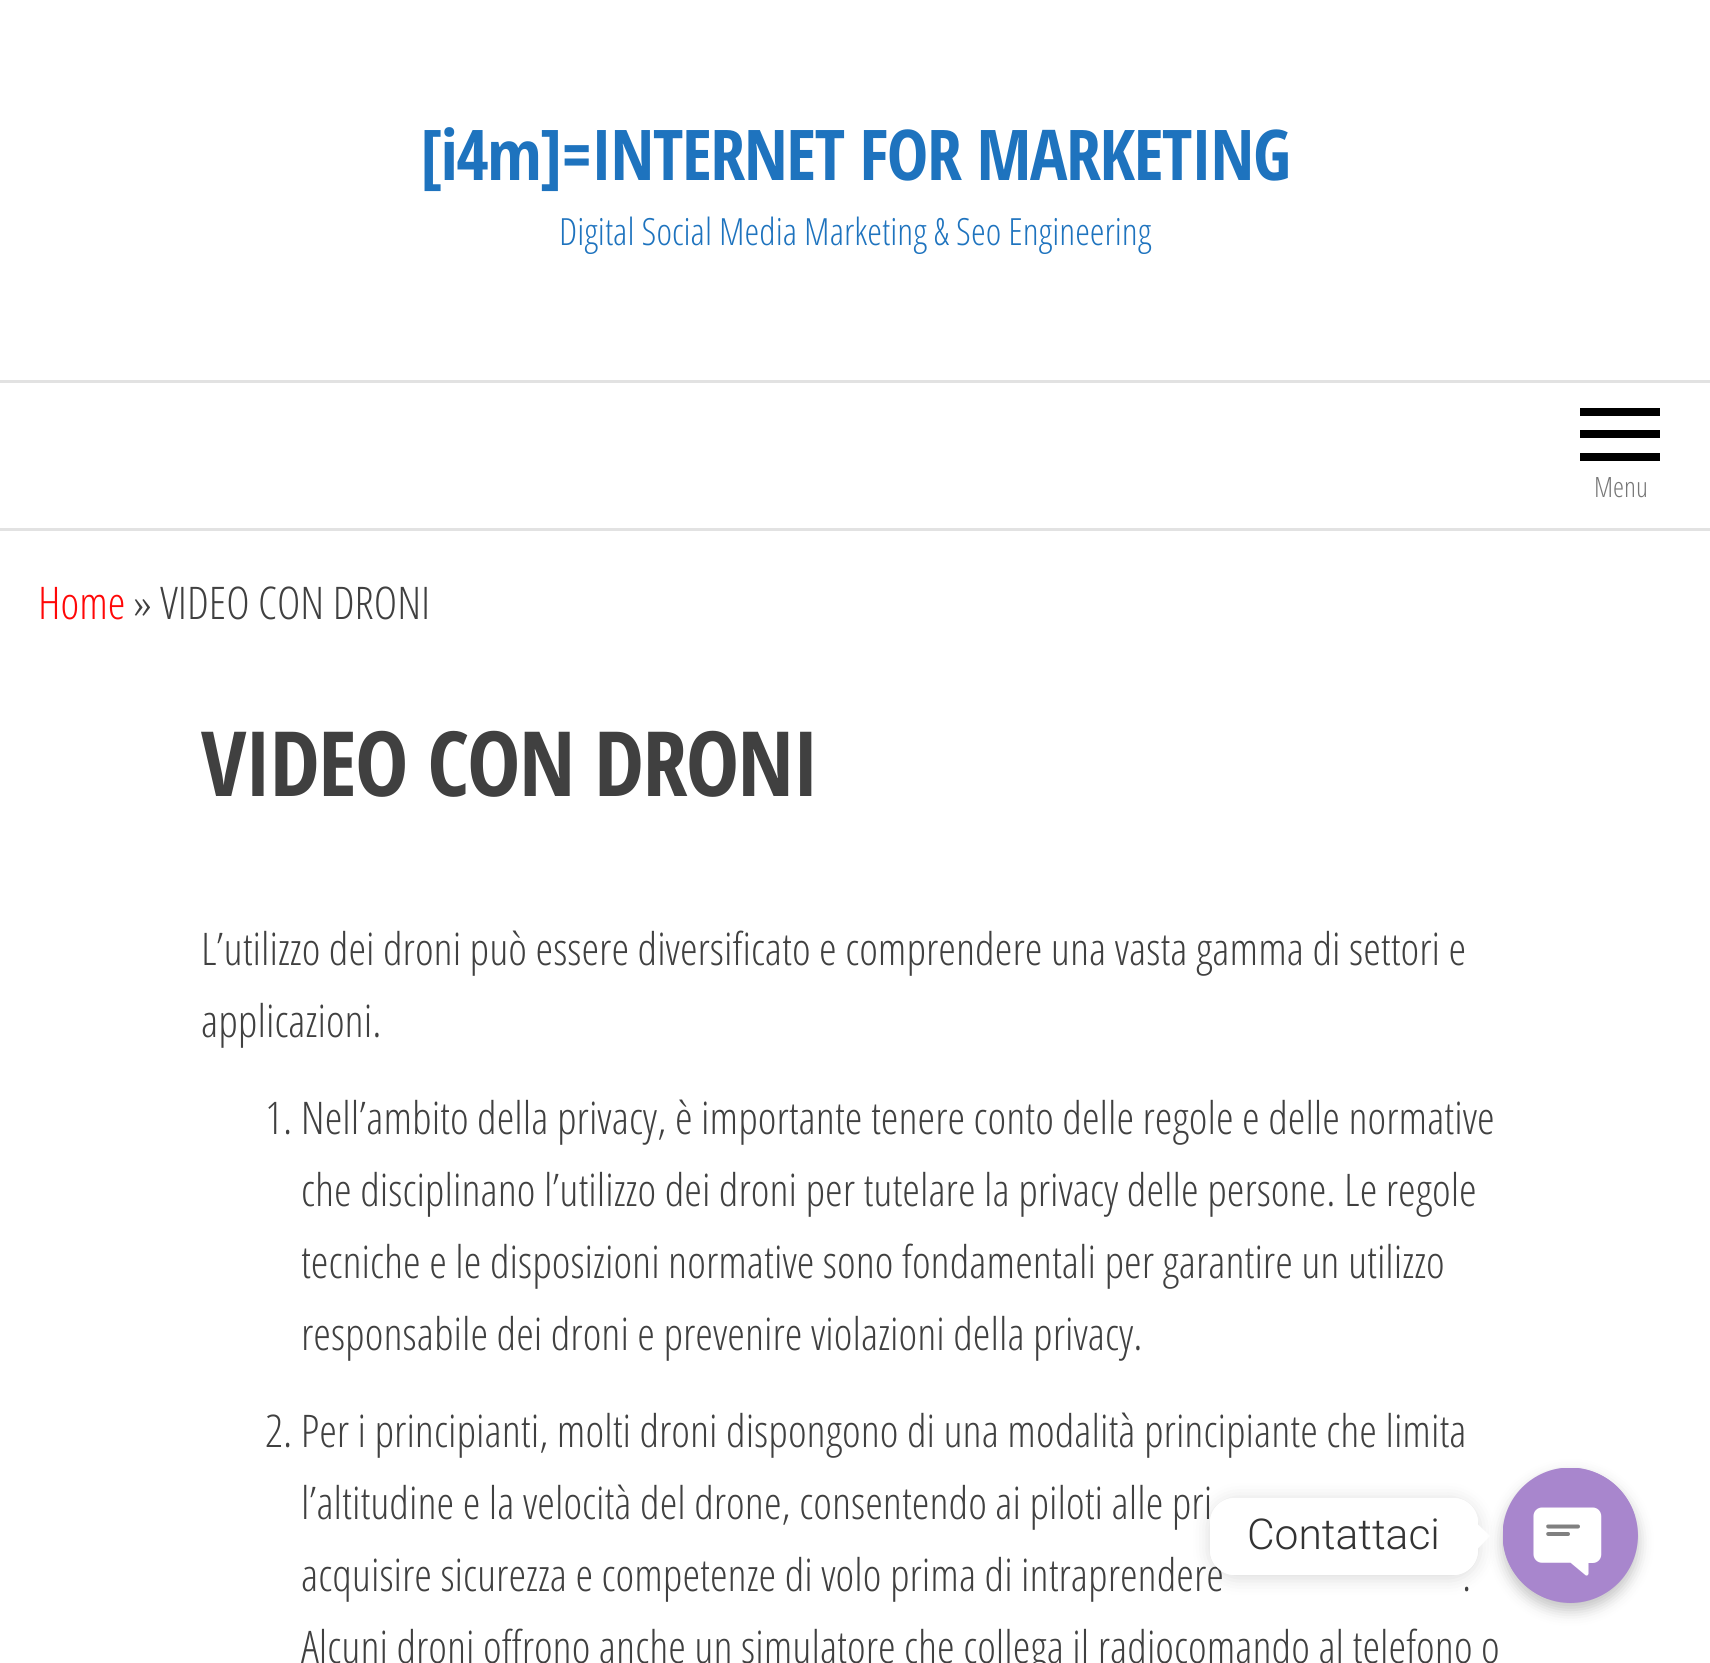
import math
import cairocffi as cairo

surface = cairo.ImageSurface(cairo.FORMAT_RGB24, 1710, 1663)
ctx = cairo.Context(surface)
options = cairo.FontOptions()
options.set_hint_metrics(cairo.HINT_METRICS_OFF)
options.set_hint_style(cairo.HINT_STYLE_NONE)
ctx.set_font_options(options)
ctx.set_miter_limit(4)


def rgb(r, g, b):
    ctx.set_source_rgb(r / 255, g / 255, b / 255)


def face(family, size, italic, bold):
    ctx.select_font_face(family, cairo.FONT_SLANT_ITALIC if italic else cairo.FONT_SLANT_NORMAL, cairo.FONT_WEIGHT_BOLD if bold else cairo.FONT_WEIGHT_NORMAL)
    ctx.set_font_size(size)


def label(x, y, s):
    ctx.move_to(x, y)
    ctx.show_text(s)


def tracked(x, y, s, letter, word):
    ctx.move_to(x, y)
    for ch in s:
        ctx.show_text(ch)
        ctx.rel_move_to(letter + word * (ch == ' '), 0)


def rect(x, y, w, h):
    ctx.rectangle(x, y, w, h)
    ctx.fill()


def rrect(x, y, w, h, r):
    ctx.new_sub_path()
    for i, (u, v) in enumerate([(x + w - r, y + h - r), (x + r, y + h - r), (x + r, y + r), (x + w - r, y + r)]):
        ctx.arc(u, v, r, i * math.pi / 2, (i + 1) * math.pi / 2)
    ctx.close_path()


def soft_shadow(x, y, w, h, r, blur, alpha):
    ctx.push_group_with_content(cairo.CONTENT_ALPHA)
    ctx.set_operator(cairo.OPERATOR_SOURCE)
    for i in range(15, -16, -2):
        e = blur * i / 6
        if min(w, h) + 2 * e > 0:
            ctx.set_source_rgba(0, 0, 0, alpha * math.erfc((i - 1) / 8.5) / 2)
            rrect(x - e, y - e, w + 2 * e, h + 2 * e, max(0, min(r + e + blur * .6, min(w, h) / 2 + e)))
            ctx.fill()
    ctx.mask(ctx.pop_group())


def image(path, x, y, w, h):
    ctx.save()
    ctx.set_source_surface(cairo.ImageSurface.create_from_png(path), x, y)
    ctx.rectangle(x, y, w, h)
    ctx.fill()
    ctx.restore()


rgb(255, 255, 255)
ctx.paint()
face('Open Sans Condensed', 70, 0, 1)
rgb(30, 115, 190)
tracked(420, 180, '[i4m]=INTERNET FOR MARKETING', -1.4, 0)
face('Open Sans Condensed Light', 37.5, 0, 0)
label(559, 245, 'Digital Social Media Marketing & Seo Engineering')
rgb(226, 226, 226)
rect(0, 380, 1710, 3)
rect(0, 528, 1710, 3)
rgb(0, 0, 0)
rect(1580, 408, 80, 8)
rect(1580, 430, 80, 8)
rect(1580, 453, 80, 8)
face('Open Sans Condensed Light', 28, 0, 0)
rgb(119, 119, 119)
label(1594, 497, 'Menu')
face('Open Sans Condensed Light', 45, 0, 0)
rgb(255, 7, 7)
label(38, 619, 'Home')
rgb(64, 64, 64)
label(133, 619, '» VIDEO CON DRONI')
face('Open Sans Condensed', 90, 0, 1)
tracked(201, 796, 'VIDEO CON DRONI', -1.75, 0)
face('Open Sans Condensed Light', 45, 0, 0)
label(201, 965, 'L’utilizzo dei droni può essere diversificato e comprendere una vasta gamma di settori e')
label(201, 1037, 'applicazioni.')
label(265, 1134, '1. Nell’ambito della privacy, è importante tenere conto delle regole e delle normative')
label(301, 1206, 'che disciplinano l’utilizzo dei droni per tutelare la privacy delle persone. Le regole')
label(301, 1278, 'tecniche e le disposizioni normative sono fondamentali per garantire un utilizzo')
label(301, 1350, 'responsabile dei droni e prevenire violazioni della privacy.')
label(265, 1447, '2. Per i principianti, molti droni dispongono di una modalità principiante che limita')
label(301, 1519, 'l’altitudine e la velocità del drone, consentendo ai piloti alle pri')
label(301, 1591, 'acquisire sicurezza e competenze di volo prima di intraprendere')
label(1462, 1591, '.')
label(301, 1663, 'Alcuni droni offrono anche un simulatore che collega il radiocomando al telefono o')
ctx.save()
ctx.set_fill_rule(cairo.FILL_RULE_EVEN_ODD)
ctx.new_path()
ctx.move_to(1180, 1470)
ctx.line_to(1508, 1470)
ctx.line_to(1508, 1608)
ctx.line_to(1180, 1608)
ctx.close_path()
ctx.move_to(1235, 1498)
ctx.line_to(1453, 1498)
ctx.curve_to(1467, 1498, 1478, 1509, 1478, 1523)
ctx.line_to(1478, 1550)
ctx.curve_to(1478, 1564, 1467, 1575, 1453, 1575)
ctx.line_to(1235, 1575)
ctx.curve_to(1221, 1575, 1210, 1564, 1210, 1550)
ctx.line_to(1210, 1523)
ctx.curve_to(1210, 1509, 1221, 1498, 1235, 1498)
ctx.close_path()
ctx.clip()
rgb(0, 0, 0)
soft_shadow(1210, 1500, 268, 78, 25, 9.5, 0.15)
ctx.restore()
rgb(255, 255, 255)
rrect(1210, 1498, 268, 77, 25)
ctx.fill()
face('Roboto Light', 42.5, 0, 0)
rgb(51, 51, 51)
label(1247, 1549, 'Contattaci')
rgb(255, 255, 255)
ctx.new_path()
ctx.move_to(1477.5, 1549)
ctx.line_to(1477.5, 1524)
ctx.line_to(1490, 1536)
ctx.close_path()
ctx.fill()
rgb(0, 0, 0)
soft_shadow(1503, 1475, 135, 135, 67.5, 7.5, 0.25)
rgb(168, 134, 205)
ctx.arc(1570.5, 1535.5, 67.5, 0, 2 * math.pi)
ctx.fill()
image('image0.png', 1503, 1468, 132, 131)
surface.write_to_png('render.png')
